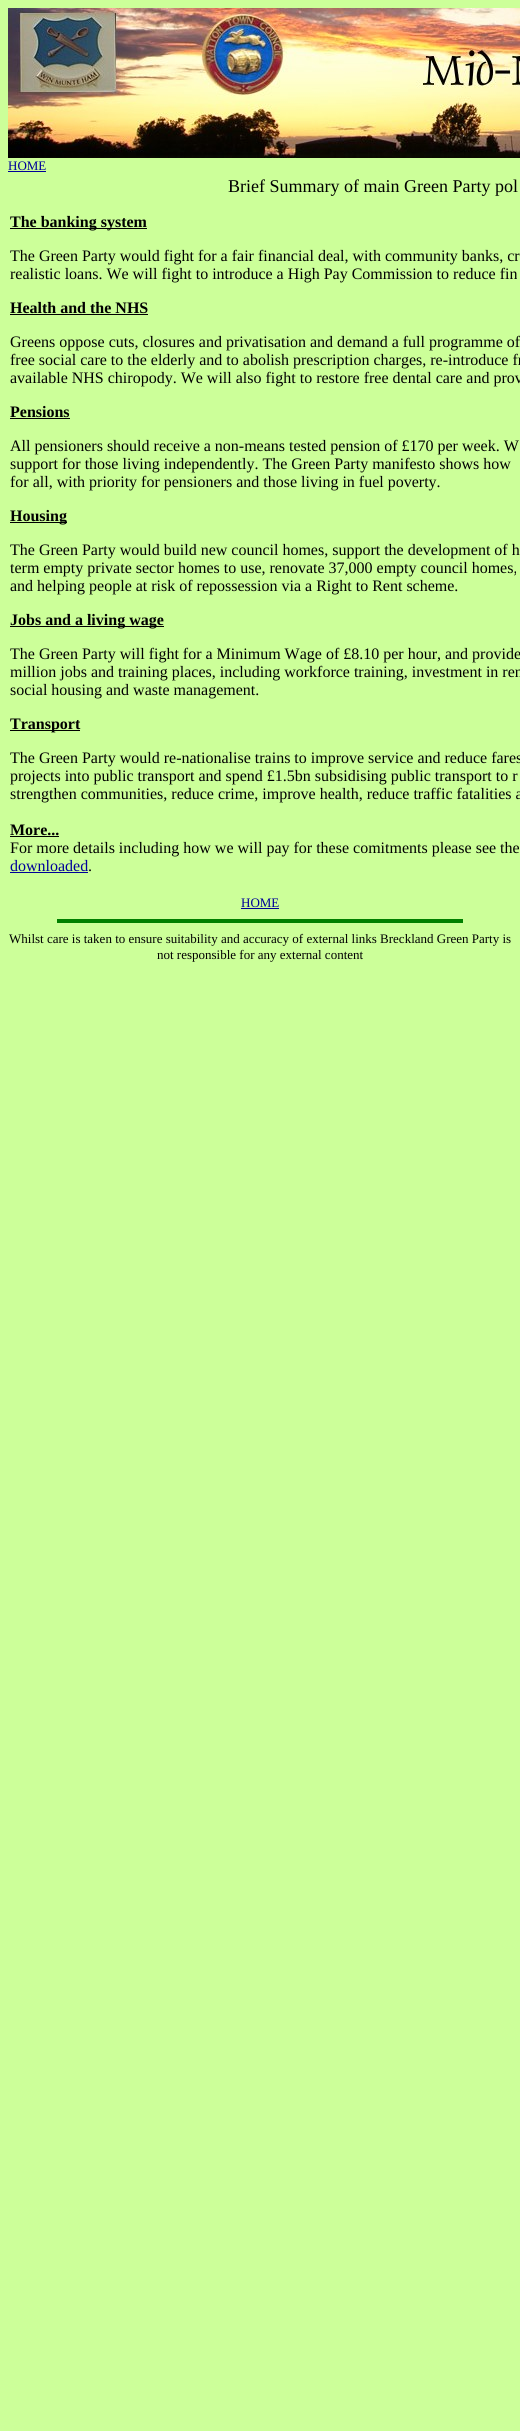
import math
import cairocffi as cairo

surface = cairo.ImageSurface(cairo.FORMAT_RGB24, 520, 2431)
ctx = cairo.Context(surface)
options = cairo.FontOptions()
options.set_hint_metrics(cairo.HINT_METRICS_OFF)
options.set_hint_style(cairo.HINT_STYLE_NONE)
ctx.set_font_options(options)
ctx.set_miter_limit(4)


def rgb(r, g, b):
    ctx.set_source_rgb(r / 255, g / 255, b / 255)


def face(family, size, italic, bold):
    ctx.select_font_face(family, cairo.FONT_SLANT_ITALIC if italic else cairo.FONT_SLANT_NORMAL, cairo.FONT_WEIGHT_BOLD if bold else cairo.FONT_WEIGHT_NORMAL)
    ctx.set_font_size(size)


def label(x, y, s):
    ctx.move_to(x, y)
    ctx.show_text(s)


def rect(x, y, w, h):
    ctx.rectangle(x, y, w, h)
    ctx.fill()


def image(path, x, y, w, h):
    ctx.save()
    ctx.set_source_surface(cairo.ImageSurface.create_from_png(path), x, y)
    ctx.rectangle(x, y, w, h)
    ctx.fill()
    ctx.restore()


rgb(204, 255, 153)
ctx.paint()
image('image0.png', 8, 8, 512, 150)
face('Liberation Serif', 13, 0, 0)
rgb(0, 0, 153)
label(8, 170, 'HOME')
rect(8, 171, 38, 1)
face('Liberation Serif', 18, 0, 0)
rgb(0, 0, 0)
label(228, 192, 'Brief Summary of main Green Party pol')
rect(10, 228, 137, 1)
face('Liberation Serif', 16, 0, 1)
label(10, 227, 'The banking system')
face('Liberation Serif', 16, 0, 0)
label(10, 261, 'The Green Party would fight for a fair financial deal, with community banks, cr')
label(10, 279, 'realistic loans. We will fight to introduce a High Pay Commission to reduce fin')
face('Liberation Serif', 16, 0, 1)
label(10, 313, 'Health and the NHS')
rect(10, 314, 138, 1)
face('Liberation Serif', 16, 0, 0)
label(10, 347, 'Greens oppose cuts, closures and privatisation and demand a full programme of')
label(10, 365, 'free social care to the elderly and to abolish prescription charges, re-introduce fr')
label(10, 383, 'available NHS chiropody. We will also fight to restore free dental care and prov')
face('Liberation Serif', 16, 0, 1)
label(10, 417, 'Pensions')
rect(10, 418, 60, 1)
face('Liberation Serif', 16, 0, 0)
label(10, 451, 'All pensioners should receive a non-means tested pension of £170 per week. W')
label(10, 469, 'support for those living independently. The Green Party manifesto shows how')
label(10, 487, 'for all, with priority for pensioners and those living in fuel poverty.')
rect(10, 522, 57, 1)
face('Liberation Serif', 16, 0, 1)
label(10, 521, 'Housing')
face('Liberation Serif', 16, 0, 0)
label(10, 555, 'The Green Party would build new council homes, support the development of h')
label(10, 573, 'term empty private sector homes to use, renovate 37,000 empty council homes,')
label(10, 591, 'and helping people at risk of repossession via a Right to Rent scheme.')
rect(10, 626, 154, 1)
face('Liberation Serif', 16, 0, 1)
label(10, 625, 'Jobs and a living wage')
face('Liberation Serif', 16, 0, 0)
label(10, 659, 'The Green Party will fight for a Minimum Wage of £8.10 per hour, and provide')
label(10, 677, 'million jobs and training places, including workforce training, investment in ren')
label(10, 695, 'social housing and waste management.')
rect(10, 730, 70, 1)
face('Liberation Serif', 16, 0, 1)
label(10, 729, 'Transport')
face('Liberation Serif', 16, 0, 0)
label(10, 763, 'The Green Party would re-nationalise trains to improve service and reduce fares')
label(10, 781, 'projects into public transport and spend £1.5bn subsidising public transport to r')
label(10, 799, 'strengthen communities, reduce crime, improve health, reduce traffic fatalities a')
face('Liberation Serif', 16, 0, 1)
label(10, 835, 'More...')
rect(10, 836, 49, 1)
face('Liberation Serif', 16, 0, 0)
label(10, 853, 'For more details including how we will pay for these comitments please see the')
rgb(0, 0, 153)
label(10, 871, 'downloaded')
rect(10, 872, 78, 1)
rgb(0, 0, 0)
label(88, 871, '.')
face('Liberation Serif', 13, 0, 0)
rgb(0, 0, 153)
label(241, 907, 'HOME')
rect(241, 908, 38, 1)
rgb(0, 128, 0)
rect(57, 919, 406, 4)
rgb(0, 0, 0)
label(9, 943, 'Whilst care is taken to ensure suitability and accuracy of external links Breckland Green Party is')
label(157, 959, 'not responsible for any external content')
surface.write_to_png('render.png')
